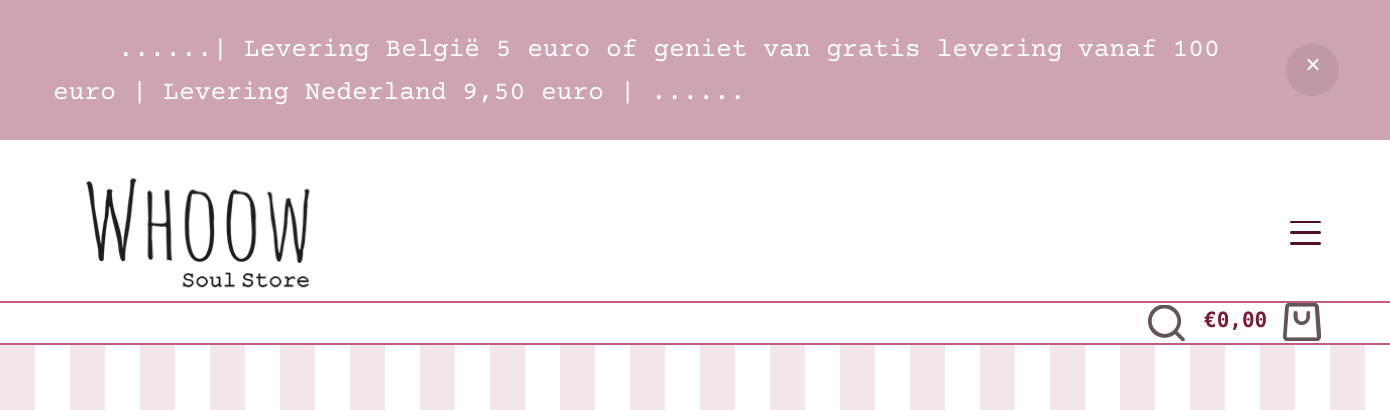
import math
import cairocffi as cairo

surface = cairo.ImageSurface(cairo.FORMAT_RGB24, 1390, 410)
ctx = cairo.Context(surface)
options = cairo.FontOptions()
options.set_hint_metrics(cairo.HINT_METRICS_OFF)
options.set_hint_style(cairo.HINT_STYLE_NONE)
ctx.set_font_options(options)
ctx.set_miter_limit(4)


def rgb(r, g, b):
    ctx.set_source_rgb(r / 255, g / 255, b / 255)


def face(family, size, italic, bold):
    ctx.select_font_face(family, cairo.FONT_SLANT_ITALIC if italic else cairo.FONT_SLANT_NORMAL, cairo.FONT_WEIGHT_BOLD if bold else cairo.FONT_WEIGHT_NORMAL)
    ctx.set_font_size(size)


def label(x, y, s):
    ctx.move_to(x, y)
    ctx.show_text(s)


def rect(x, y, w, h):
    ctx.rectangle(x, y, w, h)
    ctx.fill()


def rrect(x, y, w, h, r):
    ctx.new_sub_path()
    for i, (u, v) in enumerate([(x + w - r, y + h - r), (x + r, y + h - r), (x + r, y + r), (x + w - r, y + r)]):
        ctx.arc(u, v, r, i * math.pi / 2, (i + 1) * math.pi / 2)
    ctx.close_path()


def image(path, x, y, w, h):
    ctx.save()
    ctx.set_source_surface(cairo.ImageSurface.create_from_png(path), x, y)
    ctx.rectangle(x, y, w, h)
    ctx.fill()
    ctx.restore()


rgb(255, 255, 255)
ctx.paint()
rgb(206, 164, 179)
rect(0, 0, 1390, 140)
face('Courier Prime', 26.25, 0, 0)
rgb(255, 255, 255)
label(118, 56, '......| Levering België 5 euro of geniet van gratis levering vanaf 100')
rgb(192, 153, 166)
rrect(1286, 44, 53, 52, 26)
ctx.fill()
face('Courier Prime', 30, 0, 0)
rgb(255, 255, 255)
label(1304, 73, '×')
face('Courier Prime', 26.25, 0, 0)
label(53, 99, 'euro | Levering Nederland 9,50 euro | ......')
image('image0.png', 85, 178, 225, 110)
rgb(85, 15, 38)
rrect(1290, 221, 31, 2, 1)
ctx.fill()
rrect(1290, 231, 31, 3, 1.5)
ctx.fill()
rrect(1290, 242, 31, 3, 1.5)
ctx.fill()
rgb(193, 91, 128)
rect(0, 301, 1390, 2)
rect(0, 343, 1390, 2)
image('image1.png', 1148, 305, 37, 36)
face('DejaVu Sans Mono', 21, 0, 1)
rgb(123, 27, 53)
label(1204, 327, '€0,00')
image('image2.png', 1283, 303, 38, 38)
image('image3.png', 0, 345, 1365, 65)
surface.write_to_png('render.png')
